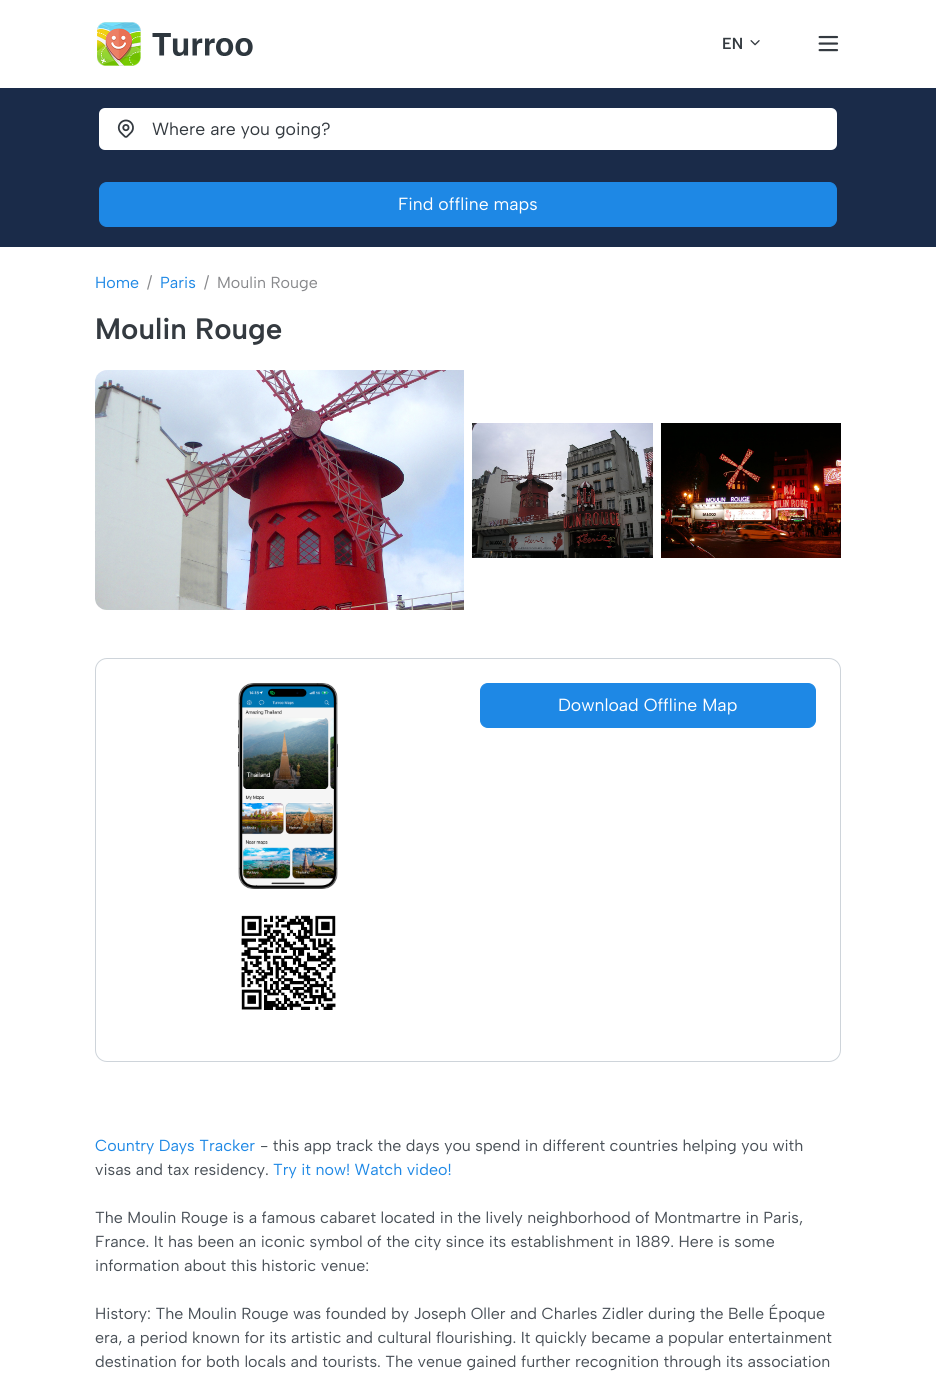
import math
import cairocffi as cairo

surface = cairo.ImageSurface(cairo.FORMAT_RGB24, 936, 1386)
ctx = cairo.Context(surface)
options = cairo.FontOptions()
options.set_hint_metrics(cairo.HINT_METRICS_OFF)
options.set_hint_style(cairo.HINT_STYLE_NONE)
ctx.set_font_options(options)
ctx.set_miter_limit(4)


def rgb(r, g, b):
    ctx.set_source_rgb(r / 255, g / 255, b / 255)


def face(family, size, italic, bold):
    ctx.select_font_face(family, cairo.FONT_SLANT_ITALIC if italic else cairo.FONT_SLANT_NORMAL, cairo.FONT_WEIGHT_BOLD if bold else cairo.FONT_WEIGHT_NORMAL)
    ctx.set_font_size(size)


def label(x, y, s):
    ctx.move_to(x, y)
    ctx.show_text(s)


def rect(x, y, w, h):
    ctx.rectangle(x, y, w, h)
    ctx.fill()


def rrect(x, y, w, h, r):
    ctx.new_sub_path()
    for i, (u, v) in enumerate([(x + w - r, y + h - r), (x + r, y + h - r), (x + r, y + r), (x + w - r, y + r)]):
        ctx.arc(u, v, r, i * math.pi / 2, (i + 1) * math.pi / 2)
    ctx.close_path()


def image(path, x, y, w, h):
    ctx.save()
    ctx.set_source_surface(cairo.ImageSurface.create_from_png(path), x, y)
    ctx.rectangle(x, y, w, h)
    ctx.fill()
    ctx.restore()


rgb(255, 255, 255)
ctx.paint()
image('image0.png', 97, 22, 156, 44)
face('Albert Sans SemiBold', 16, 0, 0)
rgb(52, 58, 64)
label(722, 49, 'EN')
image('image1.png', 750, 40, 10, 6)
image('image2.png', 818, 35, 21, 17)
rgb(26, 43, 73)
rect(0, 88, 936, 159)
rgb(255, 255, 255)
rrect(99, 108, 738, 42, 6)
ctx.fill()
image('image3.png', 117, 119, 17, 19)
face('Albert Sans', 17.6, 0, 0)
rgb(52, 58, 64)
label(152, 135, 'Where are you going?')
rgb(30, 136, 229)
rrect(99.5, 182.5, 737, 44, 7.5)
ctx.fill_preserve()
ctx.set_line_width(1)
ctx.stroke()
rgb(255, 255, 255)
label(398, 210, 'Find offline maps')
face('Albert Sans', 16, 0, 0)
rgb(30, 136, 229)
label(95, 288, 'Home')
rgb(135, 136, 139)
label(147, 288, '/')
rgb(30, 136, 229)
label(160, 288, 'Paris')
rgb(135, 136, 139)
label(204, 288, '/')
label(217, 288, 'Moulin Rouge')
face('Albert Sans SemiBold', 29.5, 0, 0)
rgb(52, 58, 64)
label(95, 339, 'Moulin Rouge')
image('image4.png', 95, 370, 369, 240)
image('image5.png', 472, 423, 181, 135)
image('image6.png', 661, 423, 180, 135)
rrect(95.5, 658.5, 745, 403, 11.5)
rgb(206, 212, 218)
ctx.stroke()
image('image7.png', 238, 683, 100, 206)
image('image8.png', 241, 915, 95, 95)
rgb(30, 136, 229)
rrect(480.5, 683.5, 335, 44, 7.5)
ctx.fill_preserve()
ctx.stroke()
face('Albert Sans', 17.6, 0, 0)
rgb(255, 255, 255)
label(558, 711, 'Download Offline Map')
face('Albert Sans', 16, 0, 0)
rgb(30, 136, 229)
label(95, 1151, 'Country Days Tracker')
rgb(73, 80, 87)
label(260, 1151, '- this app track the days you spend in different countries helping you with')
label(95, 1175, 'visas and tax residency.')
rgb(30, 136, 229)
label(273, 1175, 'Try it now! Watch video!')
rgb(73, 80, 87)
label(95, 1223, 'The Moulin Rouge is a famous cabaret located in the lively neighborhood of Montmartre in Paris,')
label(95, 1247, 'France. It has been an iconic symbol of the city since its establishment in 1889. Here is some')
label(95, 1271, 'information about this historic venue:')
label(95, 1319, 'History: The Moulin Rouge was founded by Joseph Oller and Charles Zidler during the Belle Époque')
label(95, 1343, 'era, a period known for its artistic and cultural flourishing. It quickly became a popular entertainment')
label(95, 1367, 'destination for both locals and tourists. The venue gained further recognition through its association')
surface.write_to_png('render.png')
